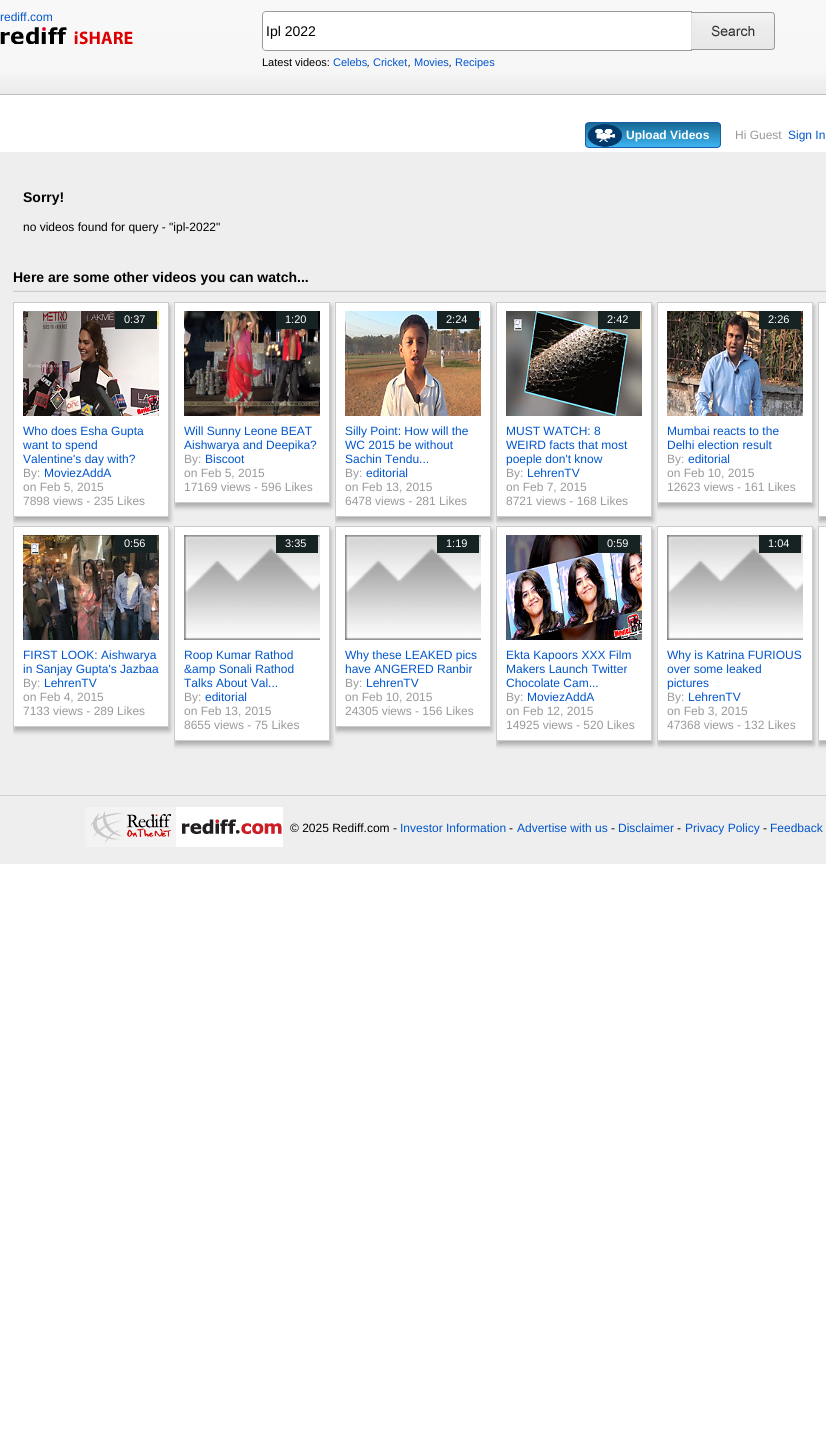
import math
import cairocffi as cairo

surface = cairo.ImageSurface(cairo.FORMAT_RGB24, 826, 1440)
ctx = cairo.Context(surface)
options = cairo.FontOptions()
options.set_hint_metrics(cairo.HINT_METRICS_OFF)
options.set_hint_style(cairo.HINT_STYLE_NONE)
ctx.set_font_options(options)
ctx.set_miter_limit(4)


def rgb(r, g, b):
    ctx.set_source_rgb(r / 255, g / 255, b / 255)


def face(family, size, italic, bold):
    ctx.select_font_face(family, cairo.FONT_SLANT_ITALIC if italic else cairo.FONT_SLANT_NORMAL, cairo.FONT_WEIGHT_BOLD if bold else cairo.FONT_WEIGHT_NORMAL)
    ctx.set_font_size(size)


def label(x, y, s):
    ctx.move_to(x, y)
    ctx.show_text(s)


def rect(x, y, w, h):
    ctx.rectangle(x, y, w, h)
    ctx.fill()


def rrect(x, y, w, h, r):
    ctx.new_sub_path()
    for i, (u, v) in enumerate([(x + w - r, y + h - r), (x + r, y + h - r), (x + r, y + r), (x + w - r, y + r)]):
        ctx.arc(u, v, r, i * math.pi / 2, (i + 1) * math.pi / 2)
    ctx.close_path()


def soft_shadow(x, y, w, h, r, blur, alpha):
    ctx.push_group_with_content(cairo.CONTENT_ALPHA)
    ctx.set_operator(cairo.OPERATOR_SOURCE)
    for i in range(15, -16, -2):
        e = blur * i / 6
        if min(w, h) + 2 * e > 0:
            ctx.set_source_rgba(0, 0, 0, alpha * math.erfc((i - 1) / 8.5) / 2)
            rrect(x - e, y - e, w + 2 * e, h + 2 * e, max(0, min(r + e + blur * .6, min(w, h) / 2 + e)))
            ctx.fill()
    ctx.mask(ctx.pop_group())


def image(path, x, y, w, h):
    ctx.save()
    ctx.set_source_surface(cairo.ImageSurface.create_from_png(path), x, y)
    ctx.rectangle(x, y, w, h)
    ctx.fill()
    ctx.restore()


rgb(255, 255, 255)
ctx.paint()
image('image0.png', 0, 0, 826, 95)
face('Liberation Sans', 12, 0, 0)
rgb(0, 85, 204)
label(0, 21, 'rediff.com')
image('image1.png', 0, 27, 67, 17)
image('image2.png', 74, 31, 59, 14)
rgb(255, 255, 255)
ctx.new_path()
ctx.move_to(266, 11)
ctx.line_to(692, 11)
ctx.line_to(692, 51)
ctx.line_to(266, 51)
ctx.curve_to(264, 51, 262, 49, 262, 47)
ctx.line_to(262, 15)
ctx.curve_to(262, 13, 264, 11, 266, 11)
ctx.close_path()
ctx.fill()
rgb(153, 153, 153)
ctx.set_fill_rule(cairo.FILL_RULE_EVEN_ODD)
ctx.new_path()
ctx.move_to(266, 11)
ctx.line_to(692, 11)
ctx.line_to(692, 51)
ctx.line_to(266, 51)
ctx.curve_to(264, 51, 262, 49, 262, 47)
ctx.line_to(262, 15)
ctx.curve_to(262, 13, 264, 11, 266, 11)
ctx.close_path()
ctx.move_to(266, 12)
ctx.line_to(692, 12)
ctx.line_to(692, 50)
ctx.line_to(266, 50)
ctx.curve_to(264, 50, 263, 49, 263, 47)
ctx.line_to(263, 15)
ctx.curve_to(263, 13, 264, 12, 266, 12)
ctx.close_path()
ctx.fill()
face('Liberation Sans', 14, 0, 0)
rgb(0, 0, 0)
label(266, 36, 'Ipl 2022')
image('image3.png', 691, 12, 84, 38)
face('Liberation Sans', 11, 0, 0)
label(262, 66, 'Latest videos:')
rgb(0, 85, 204)
label(333, 66, 'Celebs')
face('Liberation Sans', 11, 1, 0)
rgb(0, 0, 0)
label(367, 66, ',')
face('Liberation Sans', 11, 0, 0)
rgb(0, 85, 204)
label(373, 66, 'Cricket')
face('Liberation Sans', 11, 1, 0)
rgb(0, 0, 0)
label(408, 66, ',')
face('Liberation Sans', 11, 0, 0)
rgb(0, 85, 204)
label(414, 66, 'Movies')
face('Liberation Sans', 11, 1, 0)
rgb(0, 0, 0)
label(449, 66, ',')
face('Liberation Sans', 11, 0, 0)
rgb(0, 85, 204)
label(455, 66, 'Recipes')
ctx.save()
ctx.set_fill_rule(cairo.FILL_RULE_WINDING)
rrect(585, 122, 136, 26, 4)
ctx.clip()
gradient = cairo.LinearGradient(653, 123, 653, 147)
gradient.add_color_stop_rgba(0, 0.09, 0.412, 0.58, 1)
gradient.add_color_stop_rgba(1, 0.247, 0.71, 0.949, 1)
ctx.set_source(gradient)
rect(585, 123, 136, 24)
ctx.restore()
rrect(585.5, 122.5, 135, 25, 3.5)
rgb(24, 92, 168)
ctx.set_line_width(1)
ctx.stroke()
image('image4.png', 587, 124, 35, 23)
face('Liberation Sans', 12, 0, 1)
rgb(255, 255, 255)
label(626, 139, 'Upload Videos')
face('Liberation Sans', 12, 0, 0)
rgb(153, 153, 153)
label(735, 139, 'Hi Guest')
rgb(0, 85, 204)
label(788, 139, 'Sign In')
rgb(238, 238, 238)
rect(0, 152, 826, 712)
face('Liberation Sans', 14, 0, 1)
rgb(0, 0, 0)
label(23, 202, 'Sorry!')
face('Liberation Sans', 12, 0, 0)
label(23, 231, 'no videos found for query - "ipl-2022"')
face('Liberation Sans', 14, 0, 1)
label(13, 282, 'Here are some other videos you can watch...')
rgb(229, 229, 229)
rect(13, 290, 813, 1)
rgb(204, 204, 204)
rect(13, 291, 813, 1)
ctx.save()
ctx.set_fill_rule(cairo.FILL_RULE_WINDING)
ctx.rectangle(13, 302, 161, 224)
ctx.clip()
rgb(170, 170, 170)
soft_shadow(14, 306, 156, 215, 0, 2.5, 1)
ctx.restore()
rgb(255, 255, 255)
ctx.rectangle(13.5, 302.5, 155, 214)
ctx.fill_preserve()
rgb(204, 204, 204)
ctx.stroke()
image('image5.png', 23, 311, 136, 105)
rgb(23, 34, 35)
rect(115, 311, 42, 18)
face('Liberation Sans', 11, 0, 0)
rgb(255, 255, 255)
label(124, 323, '0:37')
face('Liberation Sans', 12, 0, 0)
rgb(0, 85, 204)
label(23, 435, 'Who does Esha Gupta')
label(23, 449, 'want to spend')
label(23, 463, 'Valentine\'s day with?')
rgb(153, 153, 153)
label(23, 477, 'By:')
rgb(0, 85, 204)
label(44, 477, 'MoviezAddA')
rgb(153, 153, 153)
label(23, 491, 'on Feb 5, 2015')
label(23, 505, '7898 views - 235 Likes')
ctx.save()
ctx.set_fill_rule(cairo.FILL_RULE_WINDING)
ctx.rectangle(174, 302, 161, 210)
ctx.clip()
rgb(170, 170, 170)
soft_shadow(175, 306, 156, 201, 0, 2.5, 1)
ctx.restore()
rgb(255, 255, 255)
ctx.rectangle(174.5, 302.5, 155, 200)
ctx.fill_preserve()
rgb(204, 204, 204)
ctx.stroke()
image('image6.png', 184, 311, 136, 105)
rgb(23, 34, 35)
rect(276, 311, 42, 18)
face('Liberation Sans', 11, 0, 0)
rgb(255, 255, 255)
label(285, 323, '1:20')
face('Liberation Sans', 12, 0, 0)
rgb(0, 85, 204)
label(184, 435, 'Will Sunny Leone BEAT')
label(184, 449, 'Aishwarya and Deepika?')
rgb(153, 153, 153)
label(184, 463, 'By:')
rgb(0, 85, 204)
label(205, 463, 'Biscoot')
rgb(153, 153, 153)
label(184, 477, 'on Feb 5, 2015')
label(184, 491, '17169 views - 596 Likes')
ctx.save()
ctx.set_fill_rule(cairo.FILL_RULE_WINDING)
ctx.rectangle(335, 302, 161, 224)
ctx.clip()
rgb(170, 170, 170)
soft_shadow(336, 306, 156, 215, 0, 2.5, 1)
ctx.restore()
rgb(255, 255, 255)
ctx.rectangle(335.5, 302.5, 155, 214)
ctx.fill_preserve()
rgb(204, 204, 204)
ctx.stroke()
image('image7.png', 345, 311, 136, 105)
rgb(23, 34, 35)
rect(437, 311, 42, 18)
face('Liberation Sans', 11, 0, 0)
rgb(255, 255, 255)
label(446, 323, '2:24')
face('Liberation Sans', 12, 0, 0)
rgb(0, 85, 204)
label(345, 435, 'Silly Point: How will the')
label(345, 449, 'WC 2015 be without')
label(345, 463, 'Sachin Tendu...')
rgb(153, 153, 153)
label(345, 477, 'By:')
rgb(0, 85, 204)
label(366, 477, 'editorial')
rgb(153, 153, 153)
label(345, 491, 'on Feb 13, 2015')
label(345, 505, '6478 views - 281 Likes')
ctx.save()
ctx.set_fill_rule(cairo.FILL_RULE_WINDING)
ctx.rectangle(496, 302, 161, 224)
ctx.clip()
rgb(170, 170, 170)
soft_shadow(497, 306, 156, 215, 0, 2.5, 1)
ctx.restore()
rgb(255, 255, 255)
ctx.rectangle(496.5, 302.5, 155, 214)
ctx.fill_preserve()
rgb(204, 204, 204)
ctx.stroke()
image('image8.png', 506, 311, 136, 105)
rgb(23, 34, 35)
rect(598, 311, 42, 18)
face('Liberation Sans', 11, 0, 0)
rgb(255, 255, 255)
label(607, 323, '2:42')
face('Liberation Sans', 12, 0, 0)
rgb(0, 85, 204)
label(506, 435, 'MUST WATCH: 8')
label(506, 449, 'WEIRD facts that most')
label(506, 463, 'poeple don\'t know')
rgb(153, 153, 153)
label(506, 477, 'By:')
rgb(0, 85, 204)
label(527, 477, 'LehrenTV')
rgb(153, 153, 153)
label(506, 491, 'on Feb 7, 2015')
label(506, 505, '8721 views - 168 Likes')
ctx.save()
ctx.set_fill_rule(cairo.FILL_RULE_WINDING)
ctx.rectangle(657, 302, 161, 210)
ctx.clip()
rgb(170, 170, 170)
soft_shadow(658, 306, 156, 201, 0, 2.5, 1)
ctx.restore()
rgb(255, 255, 255)
ctx.rectangle(657.5, 302.5, 155, 200)
ctx.fill_preserve()
rgb(204, 204, 204)
ctx.stroke()
image('image9.png', 667, 311, 136, 105)
rgb(23, 34, 35)
rect(759, 311, 42, 18)
face('Liberation Sans', 11, 0, 0)
rgb(255, 255, 255)
label(768, 323, '2:26')
face('Liberation Sans', 12, 0, 0)
rgb(0, 85, 204)
label(667, 435, 'Mumbai reacts to the')
label(667, 449, 'Delhi election result')
rgb(153, 153, 153)
label(667, 463, 'By:')
rgb(0, 85, 204)
label(688, 463, 'editorial')
rgb(153, 153, 153)
label(667, 477, 'on Feb 10, 2015')
label(667, 491, '12623 views - 161 Likes')
ctx.save()
ctx.set_fill_rule(cairo.FILL_RULE_WINDING)
ctx.rectangle(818, 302, 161, 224)
ctx.clip()
rgb(170, 170, 170)
soft_shadow(819, 306, 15, 215, 0, 2.5, 1)
ctx.restore()
rgb(255, 255, 255)
ctx.rectangle(818.5, 302.5, 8, 214)
ctx.fill_preserve()
rgb(204, 204, 204)
ctx.stroke()
ctx.save()
ctx.set_fill_rule(cairo.FILL_RULE_WINDING)
ctx.rectangle(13, 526, 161, 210)
ctx.clip()
rgb(170, 170, 170)
soft_shadow(14, 530, 156, 201, 0, 2.5, 1)
ctx.restore()
rgb(255, 255, 255)
ctx.rectangle(13.5, 526.5, 155, 200)
ctx.fill_preserve()
rgb(204, 204, 204)
ctx.stroke()
image('image10.png', 23, 535, 136, 105)
rgb(23, 34, 35)
rect(115, 535, 42, 18)
face('Liberation Sans', 11, 0, 0)
rgb(255, 255, 255)
label(124, 547, '0:56')
face('Liberation Sans', 12, 0, 0)
rgb(0, 85, 204)
label(23, 659, 'FIRST LOOK: Aishwarya')
label(23, 673, 'in Sanjay Gupta\'s Jazbaa')
rgb(153, 153, 153)
label(23, 687, 'By:')
rgb(0, 85, 204)
label(44, 687, 'LehrenTV')
rgb(153, 153, 153)
label(23, 701, 'on Feb 4, 2015')
label(23, 715, '7133 views - 289 Likes')
ctx.save()
ctx.set_fill_rule(cairo.FILL_RULE_WINDING)
ctx.rectangle(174, 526, 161, 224)
ctx.clip()
rgb(170, 170, 170)
soft_shadow(175, 530, 156, 215, 0, 2.5, 1)
ctx.restore()
rgb(255, 255, 255)
ctx.rectangle(174.5, 526.5, 155, 214)
ctx.fill_preserve()
rgb(204, 204, 204)
ctx.stroke()
image('image11.png', 184, 535, 136, 105)
rgb(23, 34, 35)
rect(276, 535, 42, 18)
face('Liberation Sans', 11, 0, 0)
rgb(255, 255, 255)
label(285, 547, '3:35')
face('Liberation Sans', 12, 0, 0)
rgb(0, 85, 204)
label(184, 659, 'Roop Kumar Rathod')
label(184, 673, '&amp Sonali Rathod')
label(184, 687, 'Talks About Val...')
rgb(153, 153, 153)
label(184, 701, 'By:')
rgb(0, 85, 204)
label(205, 701, 'editorial')
rgb(153, 153, 153)
label(184, 715, 'on Feb 13, 2015')
label(184, 729, '8655 views - 75 Likes')
ctx.save()
ctx.set_fill_rule(cairo.FILL_RULE_WINDING)
ctx.rectangle(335, 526, 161, 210)
ctx.clip()
rgb(170, 170, 170)
soft_shadow(336, 530, 156, 201, 0, 2.5, 1)
ctx.restore()
rgb(255, 255, 255)
ctx.rectangle(335.5, 526.5, 155, 200)
ctx.fill_preserve()
rgb(204, 204, 204)
ctx.stroke()
image('image12.png', 345, 535, 136, 105)
rgb(23, 34, 35)
rect(437, 535, 42, 18)
face('Liberation Sans', 11, 0, 0)
rgb(255, 255, 255)
label(446, 547, '1:19')
face('Liberation Sans', 12, 0, 0)
rgb(0, 85, 204)
label(345, 659, 'Why these LEAKED pics')
label(345, 673, 'have ANGERED Ranbir')
rgb(153, 153, 153)
label(345, 687, 'By:')
rgb(0, 85, 204)
label(366, 687, 'LehrenTV')
rgb(153, 153, 153)
label(345, 701, 'on Feb 10, 2015')
label(345, 715, '24305 views - 156 Likes')
ctx.save()
ctx.set_fill_rule(cairo.FILL_RULE_WINDING)
ctx.rectangle(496, 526, 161, 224)
ctx.clip()
rgb(170, 170, 170)
soft_shadow(497, 530, 156, 215, 0, 2.5, 1)
ctx.restore()
rgb(255, 255, 255)
ctx.rectangle(496.5, 526.5, 155, 214)
ctx.fill_preserve()
rgb(204, 204, 204)
ctx.stroke()
image('image13.png', 506, 535, 136, 105)
rgb(23, 34, 35)
rect(598, 535, 42, 18)
face('Liberation Sans', 11, 0, 0)
rgb(255, 255, 255)
label(607, 547, '0:59')
face('Liberation Sans', 12, 0, 0)
rgb(0, 85, 204)
label(506, 659, 'Ekta Kapoors XXX Film')
label(506, 673, 'Makers Launch Twitter')
label(506, 687, 'Chocolate Cam...')
rgb(153, 153, 153)
label(506, 701, 'By:')
rgb(0, 85, 204)
label(527, 701, 'MoviezAddA')
rgb(153, 153, 153)
label(506, 715, 'on Feb 12, 2015')
label(506, 729, '14925 views - 520 Likes')
ctx.save()
ctx.set_fill_rule(cairo.FILL_RULE_WINDING)
ctx.rectangle(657, 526, 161, 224)
ctx.clip()
rgb(170, 170, 170)
soft_shadow(658, 530, 156, 215, 0, 2.5, 1)
ctx.restore()
rgb(255, 255, 255)
ctx.rectangle(657.5, 526.5, 155, 214)
ctx.fill_preserve()
rgb(204, 204, 204)
ctx.stroke()
image('image12.png', 667, 535, 136, 105)
rgb(23, 34, 35)
rect(759, 535, 42, 18)
face('Liberation Sans', 11, 0, 0)
rgb(255, 255, 255)
label(768, 547, '1:04')
face('Liberation Sans', 12, 0, 0)
rgb(0, 85, 204)
label(667, 659, 'Why is Katrina FURIOUS')
label(667, 673, 'over some leaked')
label(667, 687, 'pictures')
rgb(153, 153, 153)
label(667, 701, 'By:')
rgb(0, 85, 204)
label(688, 701, 'LehrenTV')
rgb(153, 153, 153)
label(667, 715, 'on Feb 3, 2015')
label(667, 729, '47368 views - 132 Likes')
ctx.save()
ctx.set_fill_rule(cairo.FILL_RULE_WINDING)
ctx.rectangle(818, 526, 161, 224)
ctx.clip()
rgb(170, 170, 170)
soft_shadow(819, 530, 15, 215, 0, 2.5, 1)
ctx.restore()
rgb(255, 255, 255)
ctx.rectangle(818.5, 526.5, 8, 214)
ctx.fill_preserve()
rgb(204, 204, 204)
ctx.stroke()
rgb(209, 209, 209)
rect(0, 795, 826, 1)
image('image14.png', 85, 807, 198, 40)
rgb(0, 0, 0)
label(290, 832, '© 2025 Rediff.com -')
rgb(0, 85, 204)
label(400, 832, 'Investor Information')
rgb(0, 0, 0)
label(509, 832, '-')
rgb(0, 85, 204)
label(517, 832, 'Advertise with us')
rgb(0, 0, 0)
label(611, 832, '-')
rgb(0, 85, 204)
label(618, 832, 'Disclaimer')
rgb(0, 0, 0)
label(677, 832, '-')
rgb(0, 85, 204)
label(685, 832, 'Privacy Policy')
rgb(0, 0, 0)
label(763, 832, '-')
rgb(0, 85, 204)
label(770, 832, 'Feedback')
surface.write_to_png('render.png')
